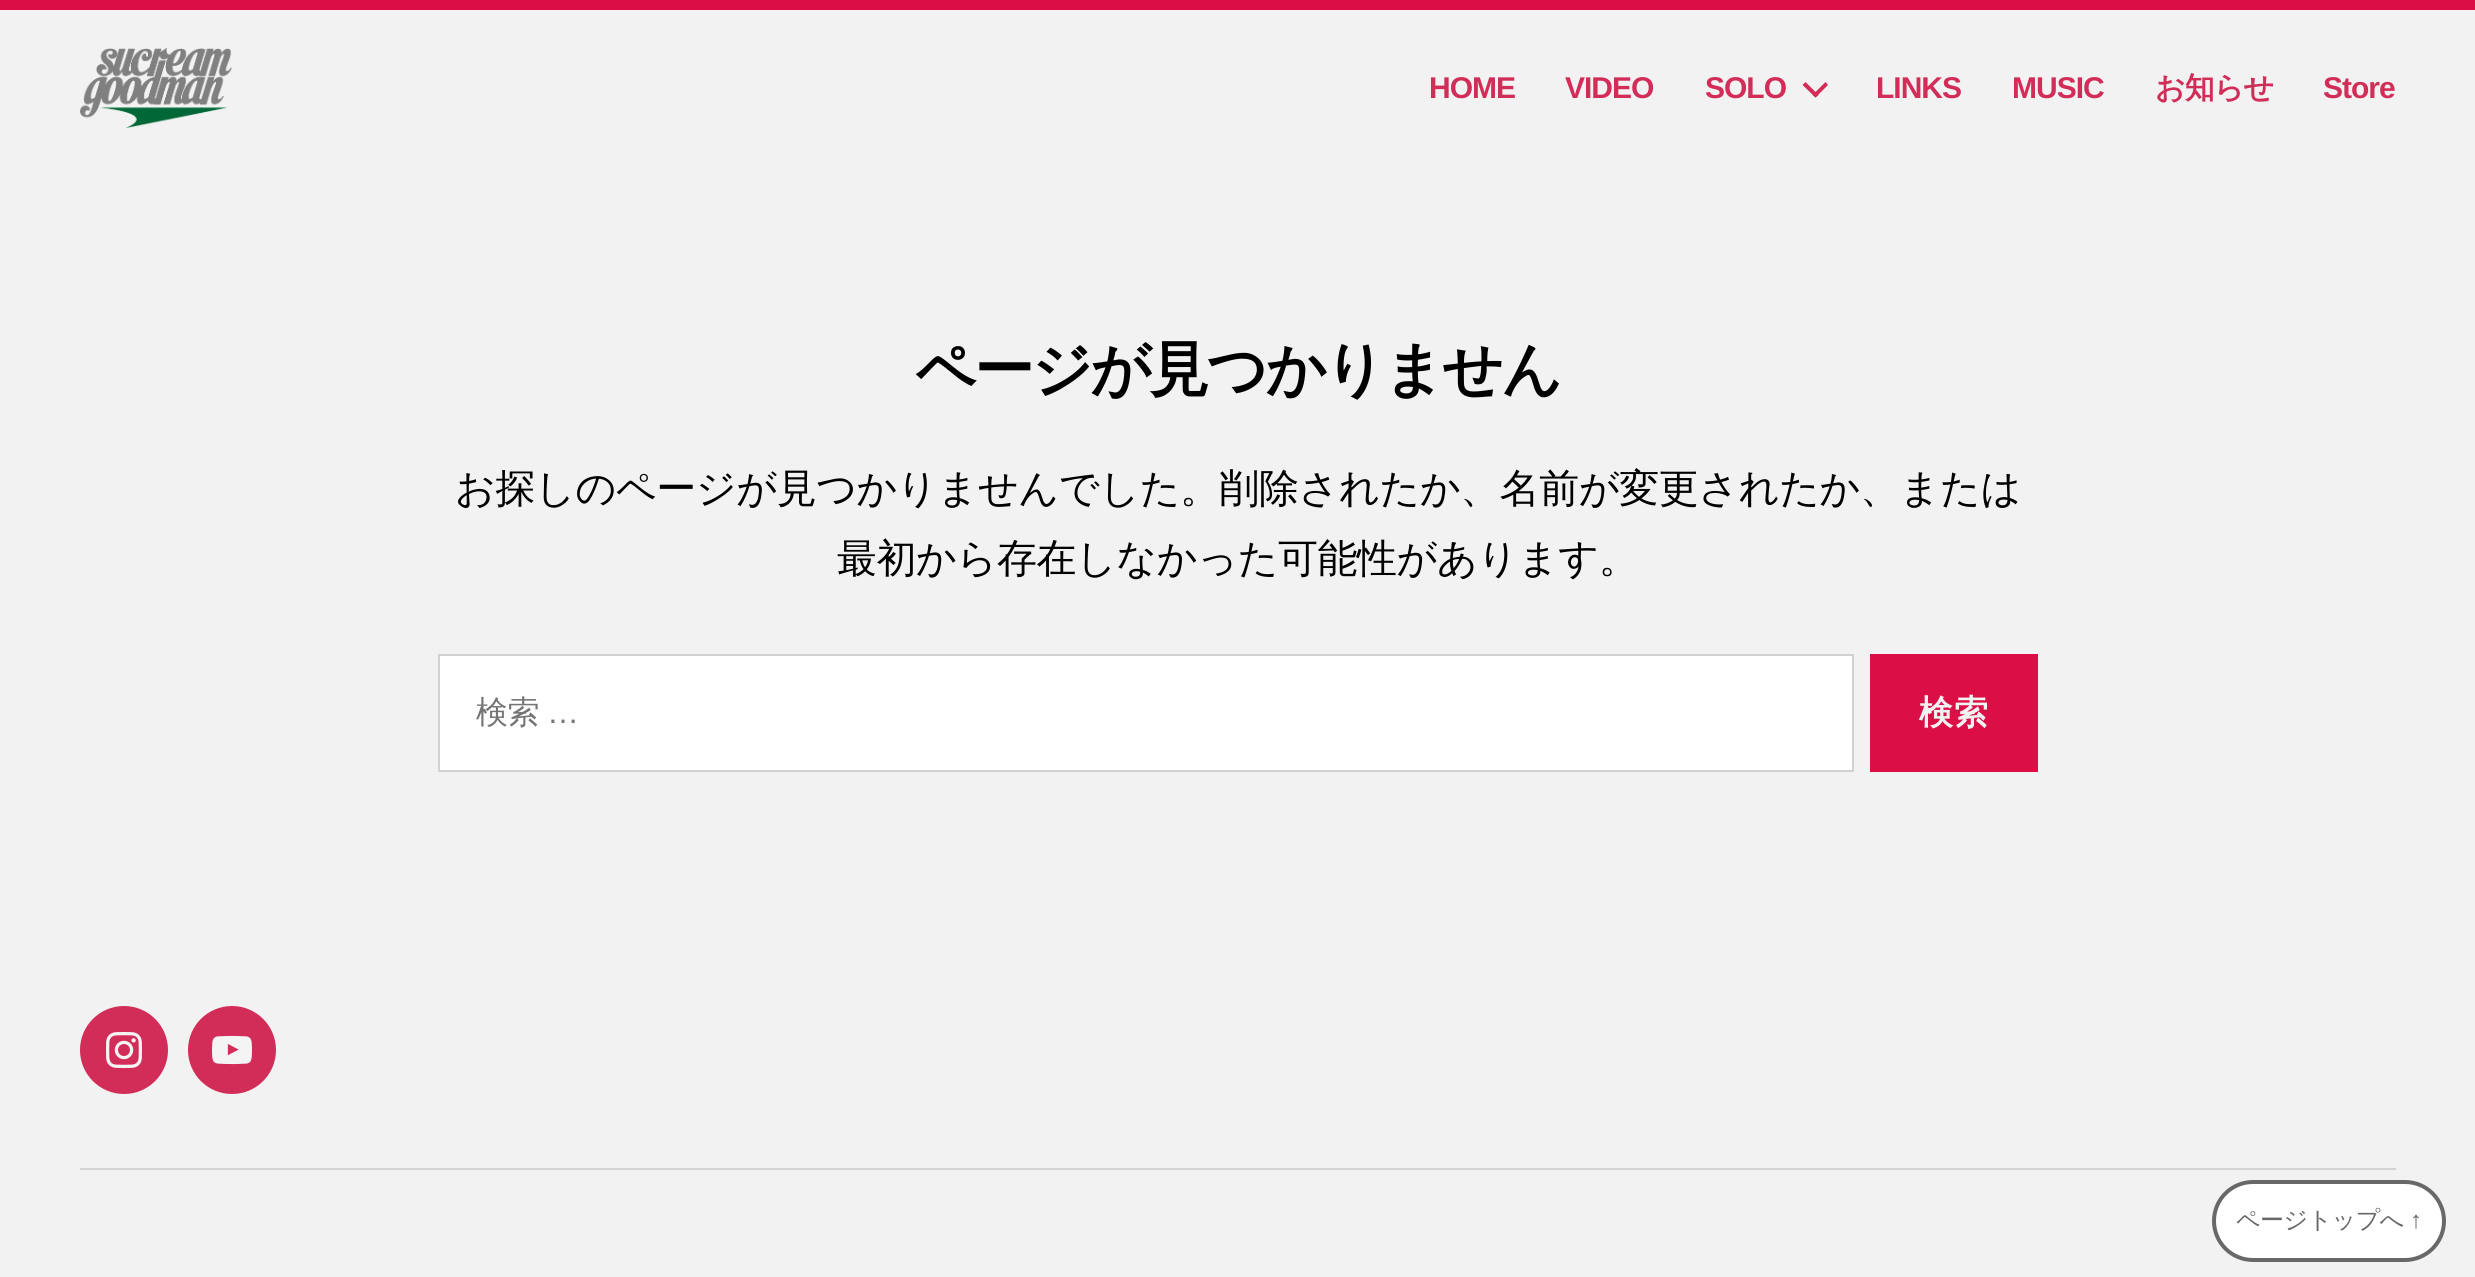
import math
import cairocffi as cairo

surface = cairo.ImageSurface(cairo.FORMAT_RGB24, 2475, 1277)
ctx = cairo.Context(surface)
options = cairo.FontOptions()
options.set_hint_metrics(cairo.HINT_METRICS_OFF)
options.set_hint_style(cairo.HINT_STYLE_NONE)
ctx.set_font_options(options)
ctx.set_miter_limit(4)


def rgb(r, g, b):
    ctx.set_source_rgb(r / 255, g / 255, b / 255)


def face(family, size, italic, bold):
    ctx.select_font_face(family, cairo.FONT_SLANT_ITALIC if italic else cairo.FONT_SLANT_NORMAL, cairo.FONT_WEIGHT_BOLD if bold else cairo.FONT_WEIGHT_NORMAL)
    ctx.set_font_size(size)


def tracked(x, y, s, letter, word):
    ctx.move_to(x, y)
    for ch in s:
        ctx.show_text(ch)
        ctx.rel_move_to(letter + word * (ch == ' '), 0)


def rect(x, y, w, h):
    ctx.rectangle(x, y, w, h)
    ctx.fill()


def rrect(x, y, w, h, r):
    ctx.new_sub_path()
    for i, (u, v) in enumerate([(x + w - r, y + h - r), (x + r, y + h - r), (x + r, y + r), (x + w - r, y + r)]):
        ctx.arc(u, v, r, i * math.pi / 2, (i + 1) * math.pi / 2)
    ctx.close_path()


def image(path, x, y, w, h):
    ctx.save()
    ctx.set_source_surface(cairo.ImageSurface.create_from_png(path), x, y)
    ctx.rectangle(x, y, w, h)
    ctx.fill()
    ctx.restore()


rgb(242, 242, 242)
ctx.paint()
rgb(219, 15, 69)
rect(0, 0, 2475, 10)
image('image0.png', 80, 48, 152, 80)
face('Liberation Sans', 30, 0, 1)
rgb(210, 44, 88)
tracked(1429, 98, 'HOME', -1, 0)
tracked(1565, 98, 'VIDEO', -1, 0)
tracked(1705, 98, 'SOLO', -1, 0)
ctx.new_path()
ctx.move_to(1802.5, 85)
ctx.line_to(1805.5, 82)
ctx.line_to(1818.5, 95)
ctx.line_to(1815.5, 97.5)
ctx.close_path()
ctx.fill()
ctx.new_path()
ctx.move_to(1812.5, 95)
ctx.line_to(1825.5, 82)
ctx.line_to(1828, 85)
ctx.line_to(1815.5, 97.5)
ctx.close_path()
ctx.fill()
tracked(1876, 98, 'LINKS', -1, 0)
tracked(2012, 98, 'MUSIC', -1, 0)
face('WenQuanYi Zen Hei', 30, 0, 1)
tracked(2155, 98, 'お知らせ', -1, 0)
face('Liberation Sans', 30, 0, 1)
tracked(2323, 98, 'Store', -1, 0)
face('WenQuanYi Zen Hei', 60, 0, 1)
rgb(0, 0, 0)
tracked(915, 390, 'ページが見つかりません', -2.5, 0)
face('WenQuanYi Zen Hei Medium', 40, 0, 0)
tracked(455, 502, 'お探しのページが見つかりませんでした。削除されたか、名前が変更されたか、または', -0.5, 0)
tracked(837, 572, '最初から存在しなかった可能性があります。', -0.5, 0)
rgb(255, 255, 255)
ctx.rectangle(439, 655, 1414, 116)
ctx.fill_preserve()
rgb(209, 209, 209)
ctx.stroke()
face('WenQuanYi Zen Hei Medium', 32, 0, 0)
rgb(117, 117, 117)
tracked(476, 723, '検索', -0.5, 0)
face('Liberation Sans', 32, 0, 0)
tracked(547, 723, '…', -0.5, 0)
rgb(219, 15, 69)
rect(1870, 654, 168, 118)
face('WenQuanYi Zen Hei', 34, 0, 1)
rgb(242, 242, 242)
tracked(1919, 724, '検索', 1, 0)
rgb(211, 211, 211)
rect(80, 1168, 2316, 2)
rgb(210, 44, 88)
ctx.new_path()
ctx.arc(124, 1050, 44, 0, 2 * math.pi)
ctx.fill()
image('image1.png', 106, 1032, 36, 36)
ctx.arc(232, 1050, 44, 0, 2 * math.pi)
ctx.fill()
image('image2.png', 212, 1035, 40, 30)
rgb(255, 255, 255)
rrect(2214, 1182, 230, 78, 39)
ctx.fill_preserve()
rgb(104, 104, 104)
ctx.set_line_width(4)
ctx.stroke()
face('WenQuanYi Zen Hei Medium', 24, 0, 0)
tracked(2236, 1228, 'ページトップへ', -0.5, 0)
face('Liberation Sans', 24, 0, 0)
tracked(2410, 1228, '↑', -0.5, 0)
surface.write_to_png('render.png')
